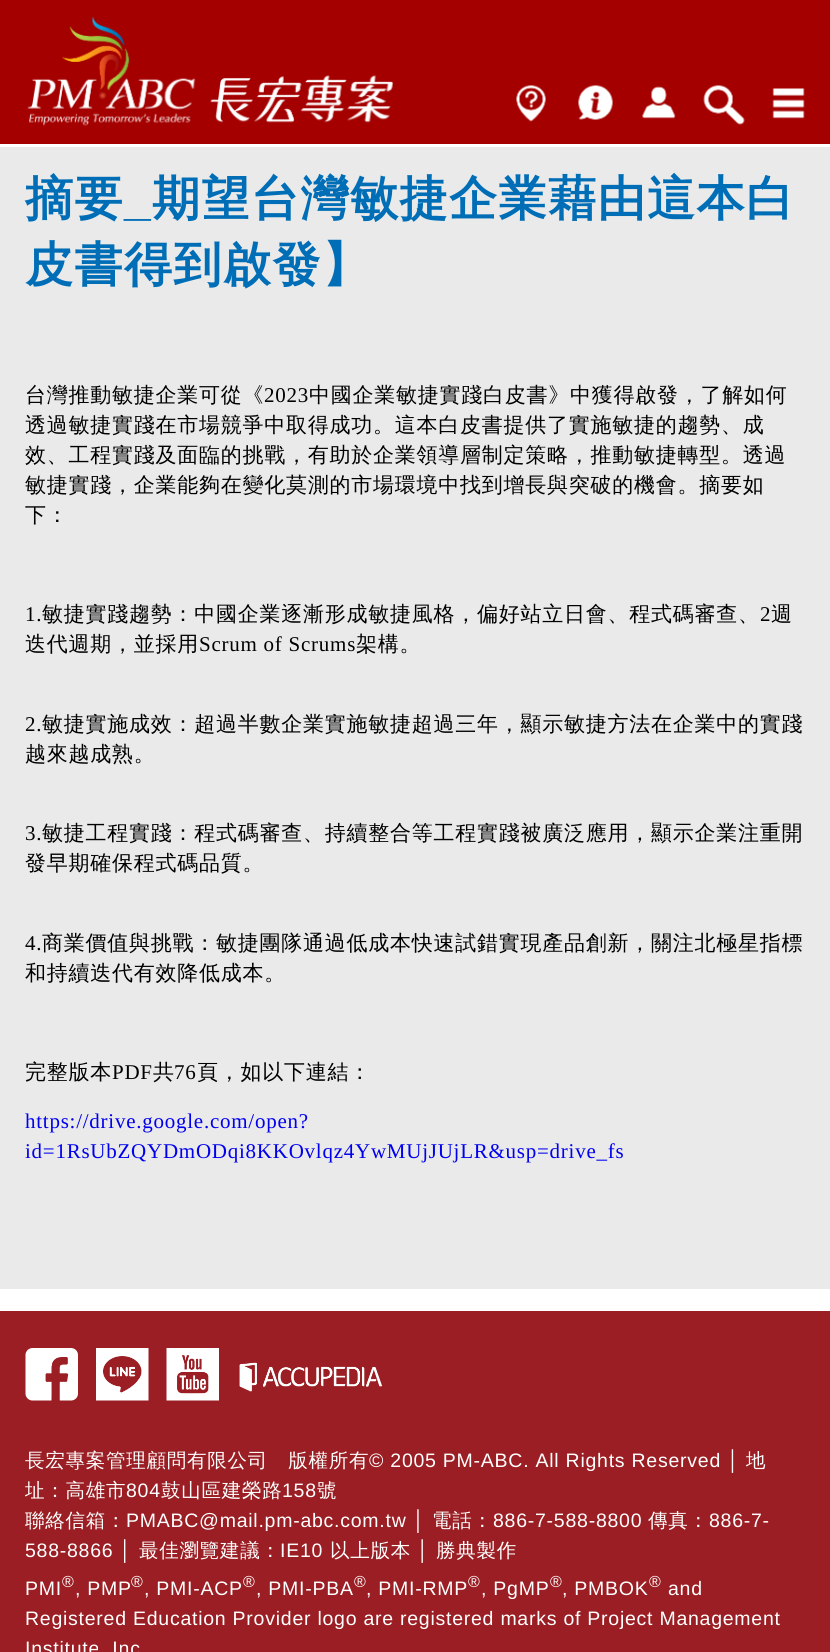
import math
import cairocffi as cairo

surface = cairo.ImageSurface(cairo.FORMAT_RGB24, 830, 1652)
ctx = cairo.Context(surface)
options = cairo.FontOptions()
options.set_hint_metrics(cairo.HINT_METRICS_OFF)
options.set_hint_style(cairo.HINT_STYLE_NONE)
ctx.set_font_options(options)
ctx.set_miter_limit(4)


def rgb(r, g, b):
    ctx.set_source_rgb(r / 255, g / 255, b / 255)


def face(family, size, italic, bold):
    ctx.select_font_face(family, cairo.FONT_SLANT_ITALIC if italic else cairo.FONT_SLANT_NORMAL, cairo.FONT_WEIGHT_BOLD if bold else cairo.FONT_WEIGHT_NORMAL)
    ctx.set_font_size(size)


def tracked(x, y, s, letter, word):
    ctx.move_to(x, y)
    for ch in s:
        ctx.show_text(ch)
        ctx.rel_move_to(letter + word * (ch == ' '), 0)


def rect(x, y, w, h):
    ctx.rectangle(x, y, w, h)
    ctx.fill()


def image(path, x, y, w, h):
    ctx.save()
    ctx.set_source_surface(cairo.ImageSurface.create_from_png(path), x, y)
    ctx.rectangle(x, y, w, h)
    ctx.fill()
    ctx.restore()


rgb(255, 255, 255)
ctx.paint()
rgb(164, 0, 0)
rect(0, 0, 830, 144)
image('image0.png', 27, 16, 169, 110)
image('image1.png', 210, 75, 184, 48)
image('image2.png', 516, 85, 30, 37)
image('image3.png', 578, 85, 35, 35)
image('image4.png', 642, 86, 34, 33)
image('image5.png', 703, 85, 42, 40)
image('image6.png', 772, 88, 33, 31)
rgb(234, 234, 234)
rect(0, 147, 830, 1142)
face('WenQuanYi Zen Hei', 48, 0, 1)
rgb(0, 110, 182)
tracked(25, 215, '摘要', 1.5, 0)
face('Liberation Sans', 48, 0, 1)
tracked(124, 215, '_', 1.5, 0)
face('WenQuanYi Zen Hei', 48, 0, 1)
tracked(152, 215, '期望台灣敏捷企業藉由這本白', 1.5, 0)
tracked(25, 281, '皮書得到啟發】', 1.5, 0)
face('WenQuanYi Zen Hei Medium', 21, 0, 0)
rgb(0, 0, 0)
tracked(25, 402, '台灣推動敏捷企業可從《', 0.75, 0)
face('Liberation Serif', 21, 0, 0)
tracked(264, 402, '2023', 0.75, 0)
face('WenQuanYi Zen Hei Medium', 21, 0, 0)
tracked(309, 402, '中國企業敏捷實踐白皮書》中獲得啟發，了解如何', 0.75, 0)
tracked(25, 432, '透過敏捷實踐在市場競爭中取得成功。這本白皮書提供了實施敏捷的趨勢、成', 0.75, 0)
tracked(25, 462, '效、工程實踐及面臨的挑戰，有助於企業領導層制定策略，推動敏捷轉型。透過', 0.75, 0)
tracked(25, 492, '敏捷實踐，企業能夠在變化莫測的市場環境中找到增長與突破的機會。摘要如', 0.75, 0)
tracked(25, 522, '下：', 0.75, 0)
face('Liberation Serif', 21, 0, 0)
tracked(25, 621, '1.', 0.75, 0)
face('WenQuanYi Zen Hei Medium', 21, 0, 0)
tracked(42, 621, '敏捷實踐趨勢：中國企業逐漸形成敏捷風格，偏好站立日會、程式碼審查、', 0.75, 0)
face('Liberation Serif', 21, 0, 0)
tracked(760, 621, '2', 0.75, 0)
face('WenQuanYi Zen Hei Medium', 21, 0, 0)
tracked(771, 621, '週', 0.75, 0)
tracked(25, 651, '迭代週期，並採用', 0.75, 0)
face('Liberation Serif', 21, 0, 0)
tracked(199, 651, 'Scrum of Scrums', 0.75, 0)
face('WenQuanYi Zen Hei Medium', 21, 0, 0)
tracked(356, 651, '架構。', 0.75, 0)
face('Liberation Serif', 21, 0, 0)
tracked(25, 731, '2.', 0.75, 0)
face('WenQuanYi Zen Hei Medium', 21, 0, 0)
tracked(42, 731, '敏捷實施成效：超過半數企業實施敏捷超過三年，顯示敏捷方法在企業中的實踐', 0.75, 0)
tracked(25, 761, '越來越成熟。', 0.75, 0)
face('Liberation Serif', 21, 0, 0)
tracked(25, 840, '3.', 0.75, 0)
face('WenQuanYi Zen Hei Medium', 21, 0, 0)
tracked(42, 840, '敏捷工程實踐：程式碼審查、持續整合等工程實踐被廣泛應用，顯示企業注重開', 0.75, 0)
tracked(25, 870, '發早期確保程式碼品質。', 0.75, 0)
face('Liberation Serif', 21, 0, 0)
tracked(25, 950, '4.', 0.75, 0)
face('WenQuanYi Zen Hei Medium', 21, 0, 0)
tracked(42, 950, '商業價值與挑戰：敏捷團隊通過低成本快速試錯實現產品創新，關注北極星指標', 0.75, 0)
tracked(25, 980, '和持續迭代有效降低成本。', 0.75, 0)
tracked(25, 1079, '完整版本', 0.75, 0)
face('Liberation Serif', 21, 0, 0)
tracked(112, 1079, 'PDF', 0.75, 0)
face('WenQuanYi Zen Hei Medium', 21, 0, 0)
tracked(153, 1079, '共', 0.75, 0)
face('Liberation Serif', 21, 0, 0)
tracked(174, 1079, '76', 0.75, 0)
face('WenQuanYi Zen Hei Medium', 21, 0, 0)
tracked(197, 1079, '頁，如以下連結：', 0.75, 0)
face('Liberation Serif', 21, 0, 0)
rgb(0, 0, 238)
tracked(25, 1128, 'https://drive.google.com/open?', 0.75, 0)
tracked(25, 1158, 'id=1RsUbZQYDmODqi8KKOvlqz4YwMUjJUjLR&usp=drive_fs', 0.75, 0)
rgb(154, 30, 35)
rect(0, 1311, 830, 341)
image('image7.png', 25, 1348, 53, 53)
image('image8.png', 96, 1348, 53, 53)
image('image9.png', 166, 1348, 53, 53)
image('image10.png', 239, 1362, 143, 30)
face('WenQuanYi Zen Hei Medium', 19.5, 0, 0)
rgb(255, 255, 255)
tracked(25, 1467, '長宏專案管理顧問有限公司　版權所有', 0.75, 0)
face('Liberation Sans', 19.5, 0, 0)
tracked(369, 1467, '© 2005 PM-ABC. All Rights Reserved │', 0.75, 0)
face('WenQuanYi Zen Hei Medium', 19.5, 0, 0)
tracked(746, 1467, '地', 0.75, 0)
tracked(25, 1497, '址：高雄市', 0.75, 0)
face('Liberation Sans', 19.5, 0, 0)
tracked(126, 1497, '804', 0.75, 0)
face('WenQuanYi Zen Hei Medium', 19.5, 0, 0)
tracked(161, 1497, '鼓山區建榮路', 0.75, 0)
face('Liberation Sans', 19.5, 0, 0)
tracked(282, 1497, '158', 0.75, 0)
face('WenQuanYi Zen Hei Medium', 19.5, 0, 0)
tracked(317, 1497, '號', 0.75, 0)
tracked(25, 1527, '聯絡信箱：', 0.75, 0)
face('Liberation Sans', 19.5, 0, 0)
tracked(126, 1527, 'PMABC@mail.pm-abc.com.tw │', 0.75, 0)
face('WenQuanYi Zen Hei Medium', 19.5, 0, 0)
tracked(432, 1527, '電話：', 0.75, 0)
face('Liberation Sans', 19.5, 0, 0)
tracked(493, 1527, '886-7-588-8800', 0.75, 0)
face('WenQuanYi Zen Hei Medium', 19.5, 0, 0)
tracked(648, 1527, '傳真：', 0.75, 0)
face('Liberation Sans', 19.5, 0, 0)
tracked(709, 1527, '886-7-', 0.75, 0)
tracked(25, 1557, '588-8866 │', 0.75, 0)
face('WenQuanYi Zen Hei Medium', 19.5, 0, 0)
tracked(139, 1557, '最佳瀏覽建議：', 0.75, 0)
face('Liberation Sans', 19.5, 0, 0)
tracked(280, 1557, 'IE10', 0.75, 0)
face('WenQuanYi Zen Hei Medium', 19.5, 0, 0)
tracked(330, 1557, '以上版本', 0.75, 0)
face('Liberation Sans', 19.5, 0, 0)
tracked(417, 1557, '│', 0.75, 0)
face('WenQuanYi Zen Hei Medium', 19.5, 0, 0)
tracked(436, 1557, '勝典製作', 0.75, 0)
face('Liberation Sans', 19.5, 0, 0)
tracked(25, 1595, 'PMI', 0.75, 0)
face('Liberation Sans', 16, 0, 0)
tracked(62, 1587, '®', 0.75, 0)
face('Liberation Sans', 19.5, 0, 0)
tracked(75, 1595, ', PMP', 0.75, 0)
face('Liberation Sans', 16, 0, 0)
tracked(131, 1587, '®', 0.75, 0)
face('Liberation Sans', 19.5, 0, 0)
tracked(144, 1595, ', PMI-ACP', 0.75, 0)
face('Liberation Sans', 16, 0, 0)
tracked(243, 1587, '®', 0.75, 0)
face('Liberation Sans', 19.5, 0, 0)
tracked(256, 1595, ', PMI-PBA', 0.75, 0)
face('Liberation Sans', 16, 0, 0)
tracked(354, 1587, '®', 0.75, 0)
face('Liberation Sans', 19.5, 0, 0)
tracked(366, 1595, ', PMI-RMP', 0.75, 0)
face('Liberation Sans', 16, 0, 0)
tracked(468, 1587, '®', 0.75, 0)
face('Liberation Sans', 19.5, 0, 0)
tracked(481, 1595, ', PgMP', 0.75, 0)
face('Liberation Sans', 16, 0, 0)
tracked(550, 1587, '®', 0.75, 0)
face('Liberation Sans', 19.5, 0, 0)
tracked(562, 1595, ', PMBOK', 0.75, 0)
face('Liberation Sans', 16, 0, 0)
tracked(649, 1587, '®', 0.75, 0)
face('Liberation Sans', 19.5, 0, 0)
tracked(668, 1595, 'and', 0.75, 0)
tracked(25, 1625, 'Registered Education Provider logo are registered marks of Project Management', 0.75, 0)
tracked(25, 1655, 'Institute, Inc', 0.75, 0)
surface.write_to_png('render.png')
